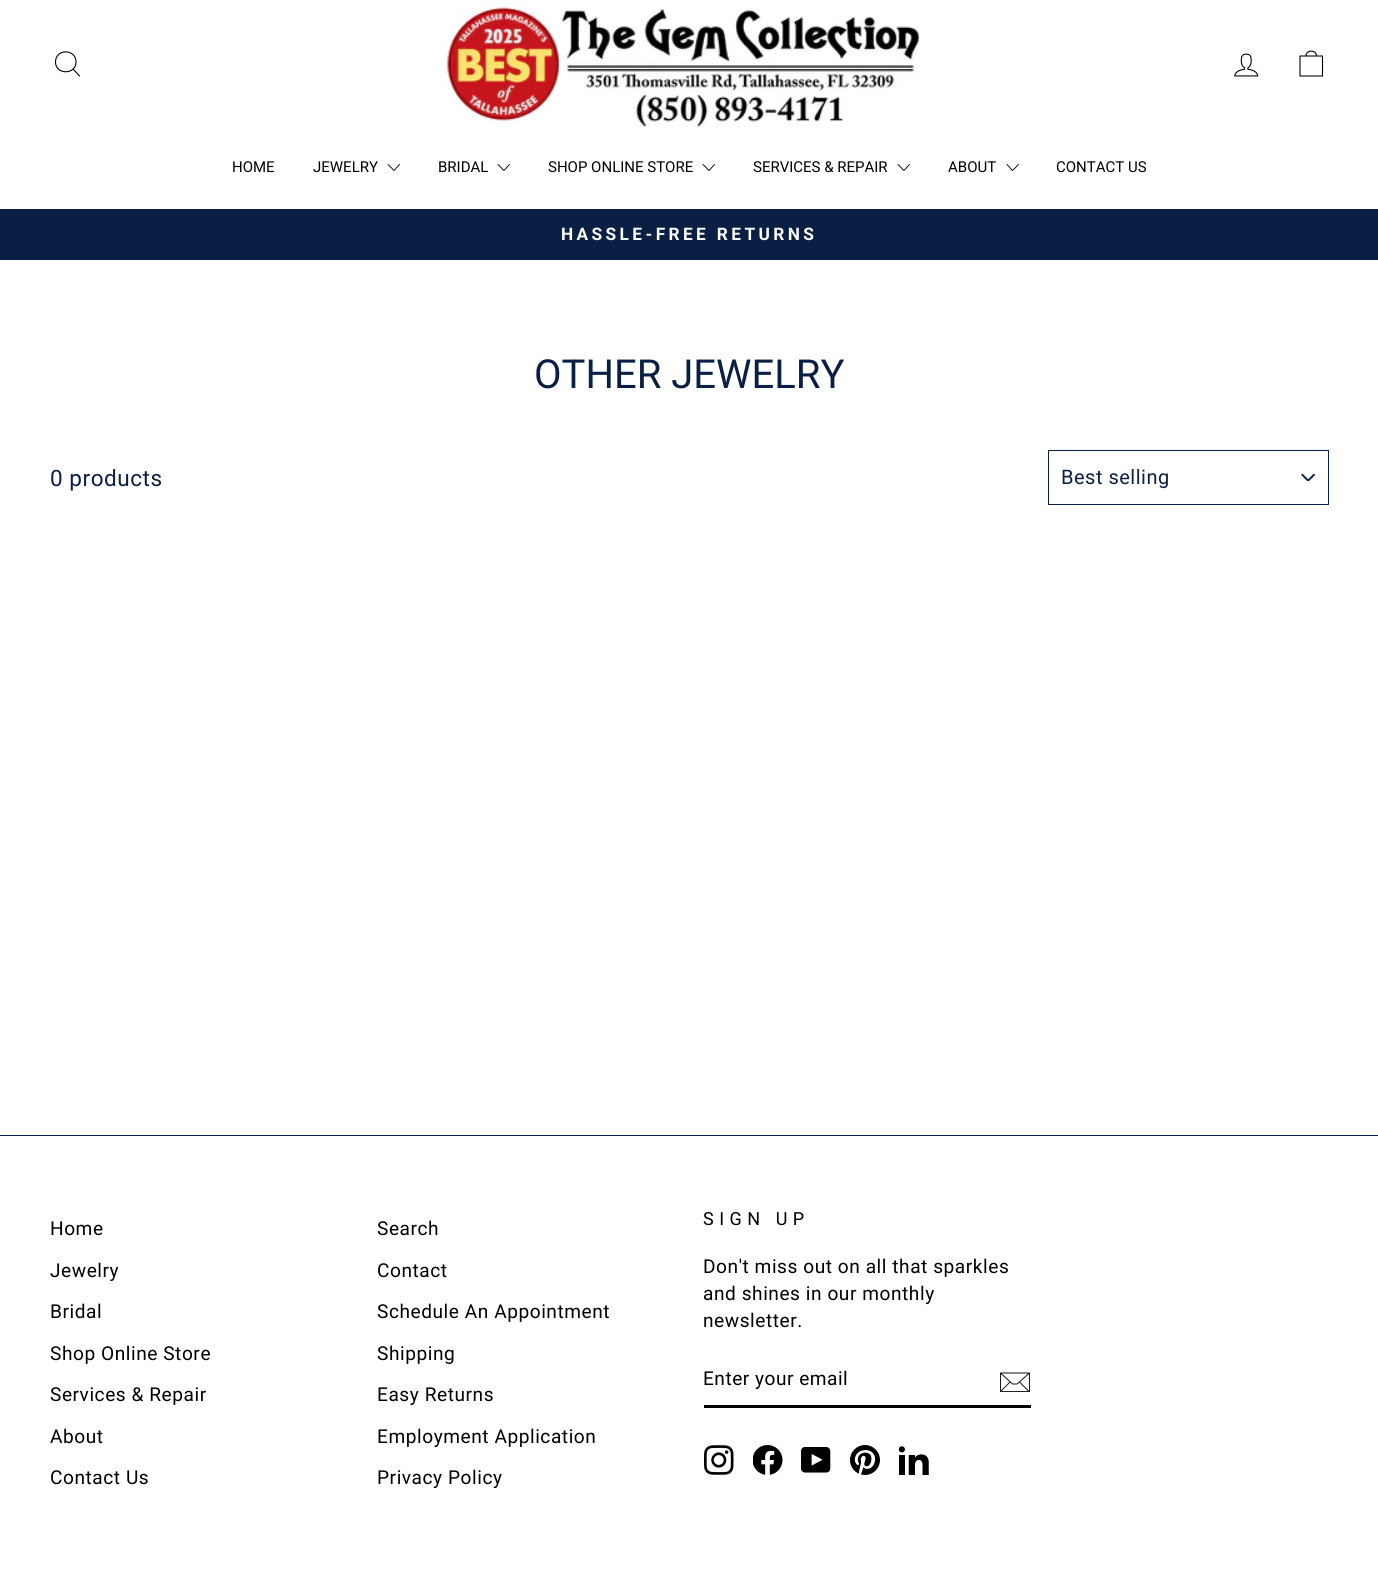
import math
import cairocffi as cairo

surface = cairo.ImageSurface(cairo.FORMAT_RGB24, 1378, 1583)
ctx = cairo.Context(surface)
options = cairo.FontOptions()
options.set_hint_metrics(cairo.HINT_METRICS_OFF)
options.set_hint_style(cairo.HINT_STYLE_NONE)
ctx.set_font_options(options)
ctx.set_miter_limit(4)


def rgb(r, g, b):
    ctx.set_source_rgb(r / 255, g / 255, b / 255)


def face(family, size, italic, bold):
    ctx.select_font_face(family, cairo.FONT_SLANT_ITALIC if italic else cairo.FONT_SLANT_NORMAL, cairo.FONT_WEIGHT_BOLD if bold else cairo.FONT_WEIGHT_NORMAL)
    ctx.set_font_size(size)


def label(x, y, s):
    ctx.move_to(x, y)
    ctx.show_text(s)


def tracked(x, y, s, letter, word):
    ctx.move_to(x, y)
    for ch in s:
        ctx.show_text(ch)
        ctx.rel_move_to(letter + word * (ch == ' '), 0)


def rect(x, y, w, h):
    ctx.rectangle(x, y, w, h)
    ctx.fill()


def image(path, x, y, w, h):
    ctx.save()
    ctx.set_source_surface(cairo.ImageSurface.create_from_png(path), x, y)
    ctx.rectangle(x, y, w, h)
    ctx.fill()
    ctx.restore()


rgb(255, 255, 255)
ctx.paint()
ctx.new_path()
ctx.move_to(76, 62)
ctx.curve_to(76, 75, 55.5, 75, 55.5, 62)
ctx.curve_to(55.5, 48.5, 76, 48.5, 76, 62)
ctx.close_path()
ctx.move_to(79.5, 76)
ctx.line_to(73, 69)
rgb(0, 0, 0)
ctx.set_line_width(1.1)
ctx.set_line_cap(cairo.LINE_CAP_ROUND)
ctx.set_line_join(cairo.LINE_JOIN_ROUND)
ctx.stroke()
image('image0.png', 440, 2, 480, 125)
image('image1.png', 1234, 53, 25, 24)
ctx.new_path()
ctx.move_to(1300, 56)
ctx.line_to(1322.5, 56)
ctx.line_to(1322.5, 76)
ctx.line_to(1300, 76)
ctx.close_path()
ctx.move_to(1306, 56)
ctx.curve_to(1306, 49.5, 1316.5, 49.5, 1316.5, 56)
ctx.stroke()
face('Roboto', 15, 0, 0)
label(232, 172, 'HOME')
label(313, 172, 'JEWELRY')
ctx.new_path()
ctx.move_to(388, 164.5)
ctx.line_to(394, 170.5)
ctx.line_to(399.5, 164.5)
ctx.set_line_width(0.9)
ctx.stroke()
label(438, 172, 'BRIDAL')
ctx.new_path()
ctx.move_to(498, 164.5)
ctx.line_to(504, 170.5)
ctx.line_to(509.5, 164.5)
ctx.stroke()
label(548, 172, 'SHOP ONLINE STORE')
ctx.new_path()
ctx.move_to(703, 164.5)
ctx.line_to(709, 170.5)
ctx.line_to(714.5, 164.5)
ctx.stroke()
label(753, 172, 'SERVICES & REPAIR')
ctx.new_path()
ctx.move_to(898, 164.5)
ctx.line_to(904, 170.5)
ctx.line_to(909.5, 164.5)
ctx.stroke()
label(948, 172, 'ABOUT')
ctx.new_path()
ctx.move_to(1007, 164.5)
ctx.line_to(1012.5, 170.5)
ctx.line_to(1018.5, 164.5)
ctx.stroke()
label(1056, 172, 'CONTACT US')
rgb(10, 31, 68)
rect(0, 209, 1378, 51)
face('Roboto', 17.25, 0, 1)
rgb(255, 255, 255)
tracked(561, 240, 'HASSLE-FREE RETURNS', 3.4, 0)
face('Roboto', 40, 0, 0)
rgb(10, 31, 68)
label(534, 388, 'OTHER JEWELRY')
face('Roboto', 22.5, 0, 0)
tracked(50, 486, '0 products', 0.55, 0)
image('image2.png', 1301, 474, 14, 7)
ctx.rectangle(1048.5, 450.5, 280, 54)
ctx.set_line_width(1)
ctx.set_line_cap(cairo.LINE_CAP_BUTT)
ctx.set_line_join(cairo.LINE_JOIN_MITER)
ctx.stroke()
face('Roboto', 20, 0, 0)
tracked(1061, 484, 'Best selling', 0.5, 0)
rect(0, 1135, 1378, 1)
face('Roboto', 19.1, 0, 0)
rgb(0, 0, 0)
tracked(50, 1235, 'Home', 0.55, 0)
tracked(50, 1277, 'Jewelry', 0.55, 0)
tracked(50, 1318, 'Bridal', 0.55, 0)
tracked(50, 1360, 'Shop Online Store', 0.55, 0)
tracked(50, 1401, 'Services & Repair', 0.55, 0)
tracked(50, 1443, 'About', 0.55, 0)
tracked(50, 1484, 'Contact Us', 0.55, 0)
tracked(377, 1235, 'Search', 0.55, 0)
tracked(377, 1277, 'Contact', 0.55, 0)
tracked(377, 1318, 'Schedule An Appointment', 0.55, 0)
tracked(377, 1360, 'Shipping', 0.55, 0)
tracked(377, 1401, 'Easy Returns', 0.55, 0)
tracked(377, 1443, 'Employment Application', 0.55, 0)
tracked(377, 1484, 'Privacy Policy', 0.55, 0)
face('Roboto', 18, 0, 0)
tracked(703, 1225, 'SIGN UP', 5.5, 0)
face('Roboto', 19.1, 0, 0)
tracked(703, 1273, 'Don\'t miss out on all that sparkles', 0.55, 0)
tracked(703, 1300, 'and shines in our monthly', 0.55, 0)
tracked(703, 1327, 'newsletter.', 0.55, 0)
rect(704, 1405, 327, 3)
tracked(703, 1385, 'Enter your email', 0.5, 0)
ctx.new_path()
ctx.move_to(1029.5, 1391.5)
ctx.line_to(1000.5, 1391.5)
ctx.line_to(1000.5, 1373)
ctx.line_to(1029.5, 1373)
ctx.close_path()
ctx.move_to(1000.5, 1373)
ctx.line_to(1012.5, 1384)
ctx.line_to(1017, 1384)
ctx.line_to(1029.5, 1373)
ctx.move_to(1010, 1382)
ctx.line_to(1000.5, 1391.5)
ctx.move_to(1029, 1391.5)
ctx.line_to(1019.5, 1382)
ctx.set_line_width(0.9)
ctx.set_line_cap(cairo.LINE_CAP_ROUND)
ctx.set_line_join(cairo.LINE_JOIN_ROUND)
ctx.stroke()
image('image3.png', 704, 1445, 30, 30)
image('image4.png', 753, 1445, 30, 30)
image('image5.png', 801, 1447, 30, 26)
image('image6.png', 850, 1445, 30, 30)
image('image7.png', 899, 1446, 30, 29)
surface.write_to_png('render.png')
